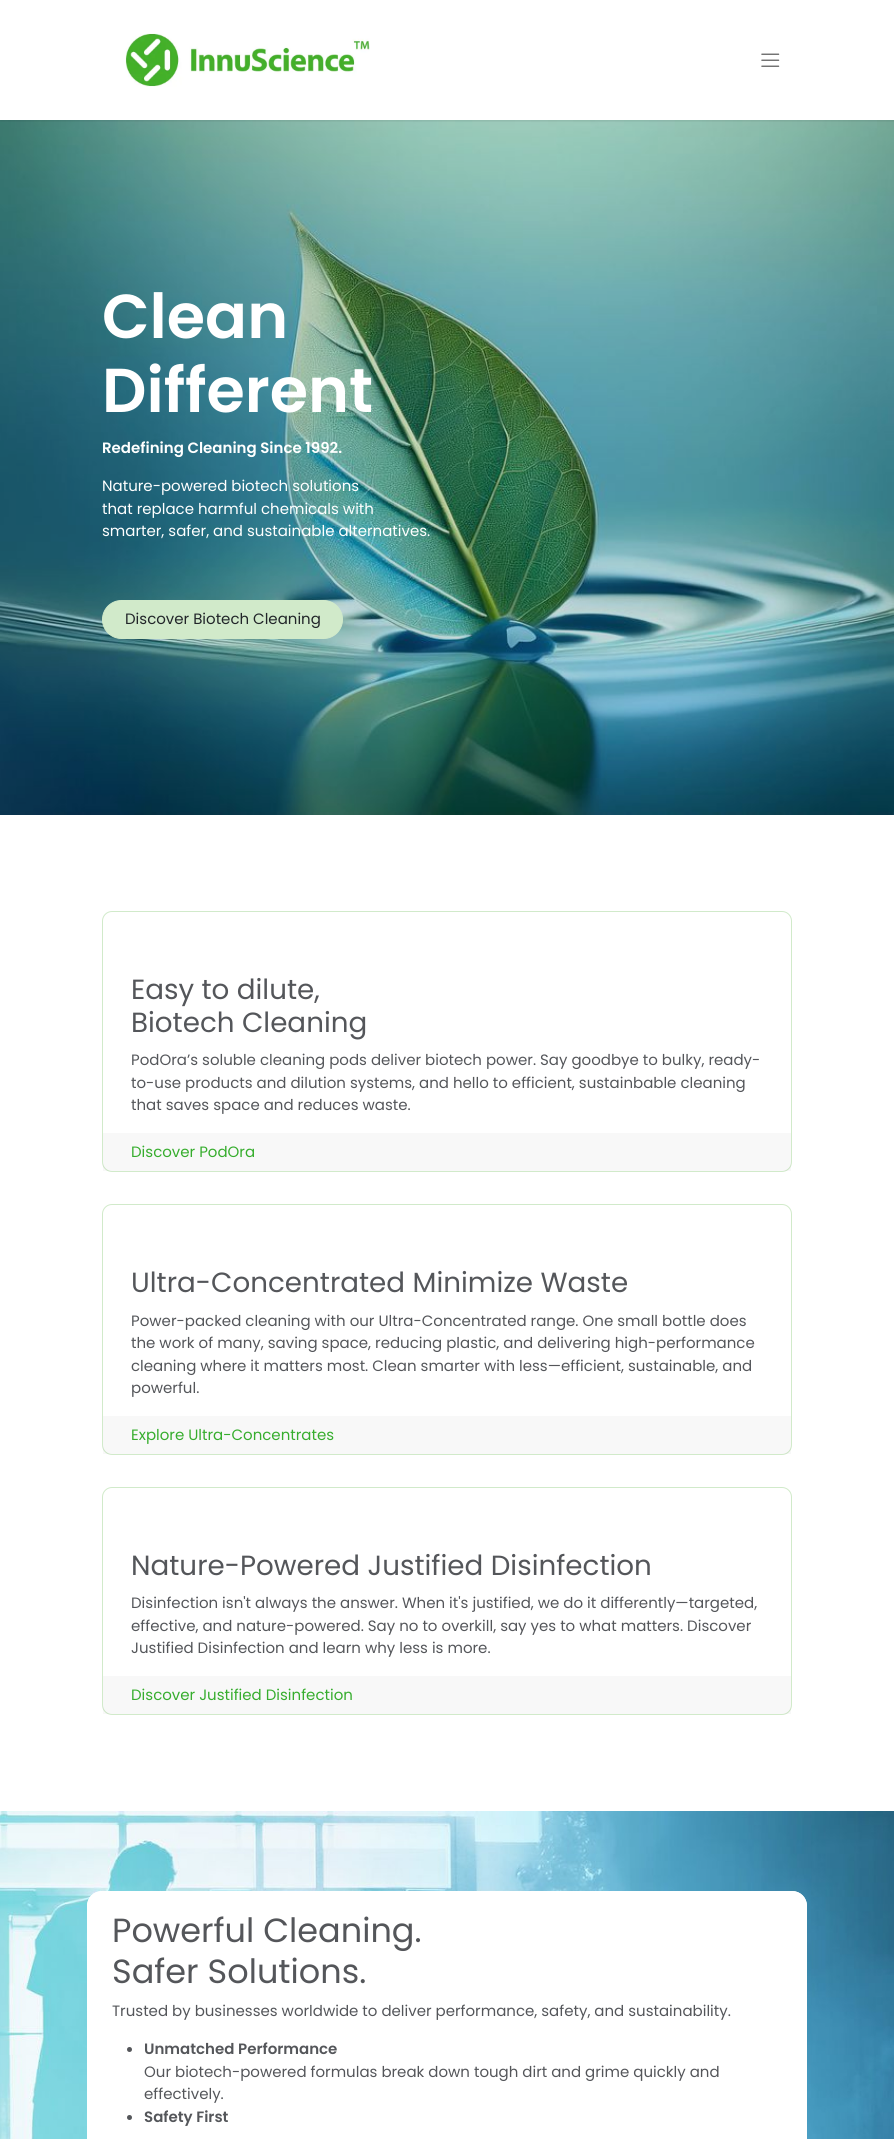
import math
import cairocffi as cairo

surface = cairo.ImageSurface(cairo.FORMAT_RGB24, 894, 2139)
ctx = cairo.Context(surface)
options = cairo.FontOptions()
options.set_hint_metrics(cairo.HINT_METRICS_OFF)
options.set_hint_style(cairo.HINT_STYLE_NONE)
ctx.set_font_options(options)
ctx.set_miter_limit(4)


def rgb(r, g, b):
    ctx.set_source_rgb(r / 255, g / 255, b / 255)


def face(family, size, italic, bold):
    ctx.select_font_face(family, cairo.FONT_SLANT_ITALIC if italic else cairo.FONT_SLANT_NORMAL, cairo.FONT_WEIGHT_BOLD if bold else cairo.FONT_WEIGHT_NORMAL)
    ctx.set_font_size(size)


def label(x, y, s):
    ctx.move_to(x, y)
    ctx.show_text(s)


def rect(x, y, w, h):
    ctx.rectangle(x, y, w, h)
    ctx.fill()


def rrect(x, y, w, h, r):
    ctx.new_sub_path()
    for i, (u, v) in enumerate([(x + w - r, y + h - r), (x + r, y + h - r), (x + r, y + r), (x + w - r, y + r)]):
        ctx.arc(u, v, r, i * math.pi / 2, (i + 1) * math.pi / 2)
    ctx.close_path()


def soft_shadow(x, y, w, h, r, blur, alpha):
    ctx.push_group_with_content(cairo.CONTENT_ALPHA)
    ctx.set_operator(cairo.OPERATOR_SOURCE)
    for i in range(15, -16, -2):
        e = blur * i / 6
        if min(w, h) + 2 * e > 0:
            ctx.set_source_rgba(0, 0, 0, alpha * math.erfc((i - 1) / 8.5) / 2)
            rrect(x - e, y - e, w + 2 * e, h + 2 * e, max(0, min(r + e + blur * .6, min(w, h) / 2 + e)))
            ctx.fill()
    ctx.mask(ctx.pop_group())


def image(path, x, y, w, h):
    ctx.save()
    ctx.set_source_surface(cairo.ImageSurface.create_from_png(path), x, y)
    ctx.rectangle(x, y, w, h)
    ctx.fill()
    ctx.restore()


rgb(255, 255, 255)
ctx.paint()
image('image2.png', 0, 120, 894, 695)
ctx.save()
ctx.rectangle(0, 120, 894, 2)
ctx.clip()
rgb(0, 0, 0)
soft_shadow(0, 1, 894, 120, 0, 1.5, 0.1)
ctx.restore()
image('image0.png', 125, 33, 245, 54)
image('image1.png', 761, 53, 19, 14)
face('Poppins SemiBold', 62, 0, 0)
rgb(255, 255, 255)
label(102, 338, 'Clean')
label(102, 412, 'Different')
face('Poppins SemiBold', 15, 0, 0)
label(102, 453, 'Redefining Cleaning Since 1992.')
face('Poppins', 15, 0, 0)
label(102, 491, 'Nature-powered biotech solutions')
label(102, 514, 'that replace harmful chemicals with')
label(102, 536, 'smarter, safer, and sustainable alternatives.')
rgb(209, 234, 202)
rrect(102.5, 600.5, 240, 38, 19)
ctx.fill_preserve()
ctx.set_line_width(1)
ctx.stroke()
rgb(33, 37, 41)
label(125, 624, 'Discover Biotech Cleaning')
rrect(102.5, 911.5, 689, 260, 9.5)
rgb(209, 234, 202)
ctx.stroke()
face('Poppins', 27.75, 0, 0)
rgb(84, 86, 90)
label(131, 999, 'Easy to dilute,')
label(131, 1032, 'Biotech Cleaning')
face('Poppins', 15, 0, 0)
label(131, 1065, 'PodOra’s soluble cleaning pods deliver biotech power. Say goodbye to bulky, ready-')
label(131, 1088, 'to-use products and dilution systems, and hello to efficient, sustainbable cleaning')
label(131, 1110, 'that saves space and reduces waste.')
ctx.set_source_rgba(0, 0, 0, 0.03)
rect(103, 1133, 688, 38)
rgb(54, 173, 45)
label(131, 1157, 'Discover PodOra')
rrect(102.5, 1204.5, 689, 250, 9.5)
rgb(209, 234, 202)
ctx.stroke()
face('Poppins', 27.75, 0, 0)
rgb(84, 86, 90)
label(131, 1292, 'Ultra-Concentrated Minimize Waste')
face('Poppins', 15, 0, 0)
label(131, 1326, 'Power-packed cleaning with our Ultra-Concentrated range. One small bottle does')
label(131, 1348, 'the work of many, saving space, reducing plastic, and delivering high-performance')
label(131, 1371, 'cleaning where it matters most. Clean smarter with less—efficient, sustainable, and')
label(131, 1393, 'powerful.')
ctx.set_source_rgba(0, 0, 0, 0.03)
rect(103, 1416, 688, 38)
rgb(54, 173, 45)
label(131, 1440, 'Explore Ultra-Concentrates')
rrect(102.5, 1487.5, 689, 227, 9.5)
rgb(209, 234, 202)
ctx.stroke()
face('Poppins', 27.75, 0, 0)
rgb(84, 86, 90)
label(131, 1575, 'Nature-Powered Justified Disinfection')
face('Poppins', 15, 0, 0)
label(131, 1608, 'Disinfection isn\'t always the answer. When it\'s justified, we do it differently—targeted,')
label(131, 1631, 'effective, and nature-powered. Say no to overkill, say yes to what matters. Discover')
label(131, 1653, 'Justified Disinfection and learn why less is more.')
ctx.set_source_rgba(0, 0, 0, 0.03)
rect(103, 1676, 688, 38)
rgb(54, 173, 45)
label(131, 1700, 'Discover Justified Disinfection')
image('image3.png', 0, 1811, 894, 328)
rgb(255, 255, 255)
ctx.new_path()
ctx.move_to(102, 1891)
ctx.line_to(792, 1891)
ctx.curve_to(800.5, 1891, 807, 1897.5, 807, 1906)
ctx.line_to(807, 2139)
ctx.line_to(87, 2139)
ctx.line_to(87, 1906)
ctx.curve_to(87, 1897.5, 93.5, 1891, 102, 1891)
ctx.close_path()
ctx.fill()
rrect(92, 1896, 710, 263, 10)
ctx.set_line_width(10)
ctx.stroke()
face('Poppins', 33.5, 0, 0)
rgb(84, 86, 90)
label(112, 1942, 'Powerful Cleaning.')
label(112, 1983, 'Safer Solutions.')
face('Poppins', 15, 0, 0)
label(112, 2016, 'Trusted by businesses worldwide to deliver performance, safety, and sustainability.')
ctx.new_path()
ctx.arc(129.5, 2049.5, 2.5, 0, 2 * math.pi)
ctx.fill()
face('Poppins SemiBold', 15, 0, 0)
label(144, 2054, 'Unmatched Performance')
face('Poppins', 15, 0, 0)
label(144, 2077, 'Our biotech-powered formulas break down tough dirt and grime quickly and')
label(144, 2099, 'effectively.')
ctx.new_path()
ctx.arc(129.5, 2117.5, 2.5, 0, 2 * math.pi)
ctx.fill()
face('Poppins SemiBold', 15, 0, 0)
label(144, 2122, 'Safety First')
surface.write_to_png('render.png')
